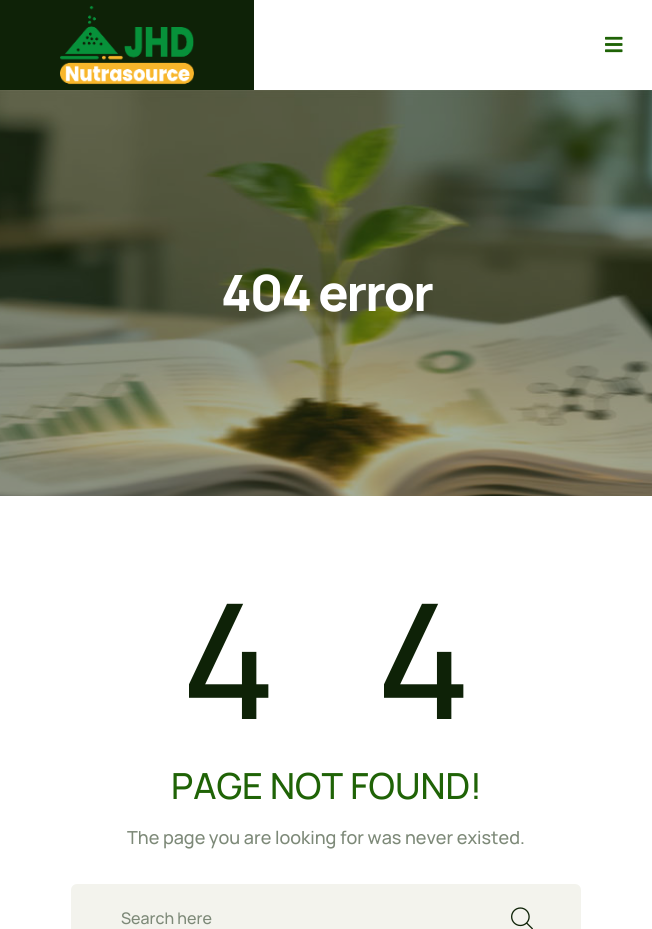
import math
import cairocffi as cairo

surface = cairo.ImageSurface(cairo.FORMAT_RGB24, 652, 929)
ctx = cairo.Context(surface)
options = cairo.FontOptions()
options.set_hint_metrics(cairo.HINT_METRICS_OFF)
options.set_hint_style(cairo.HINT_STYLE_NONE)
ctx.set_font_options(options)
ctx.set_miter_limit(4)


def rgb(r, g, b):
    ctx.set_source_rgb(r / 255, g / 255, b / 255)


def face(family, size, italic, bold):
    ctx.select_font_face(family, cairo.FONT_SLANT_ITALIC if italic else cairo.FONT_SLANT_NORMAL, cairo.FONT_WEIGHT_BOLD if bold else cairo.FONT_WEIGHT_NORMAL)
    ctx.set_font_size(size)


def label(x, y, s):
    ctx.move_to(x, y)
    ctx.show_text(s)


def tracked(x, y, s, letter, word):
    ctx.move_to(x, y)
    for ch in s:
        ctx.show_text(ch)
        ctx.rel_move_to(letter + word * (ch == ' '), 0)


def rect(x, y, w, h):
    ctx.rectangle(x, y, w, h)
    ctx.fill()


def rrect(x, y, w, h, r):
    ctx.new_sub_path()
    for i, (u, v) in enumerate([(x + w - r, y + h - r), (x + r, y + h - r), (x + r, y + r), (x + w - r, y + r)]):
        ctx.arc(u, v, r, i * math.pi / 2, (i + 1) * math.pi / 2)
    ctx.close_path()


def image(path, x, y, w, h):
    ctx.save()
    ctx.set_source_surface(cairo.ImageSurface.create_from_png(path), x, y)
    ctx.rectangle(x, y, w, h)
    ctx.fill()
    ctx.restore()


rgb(255, 255, 255)
ctx.paint()
rgb(14, 34, 7)
rect(0, 0, 254, 90)
image('image0.png', 60, 5, 134, 80)
image('image1.png', 605, 36, 18, 17)
image('image2.png', 0, 90, 652, 406)
face('Manrope ExtraBold', 50, 0, 0)
rgb(255, 255, 255)
tracked(221, 311, '404 error', -2, 0)
face('Manrope Medium', 160, 0, 0)
rgb(14, 34, 7)
label(181, 719, '4')
label(376, 719, '4')
face('Manrope Medium', 36, 0, 0)
rgb(31, 99, 6)
label(171, 799, 'PAGE NOT FOUND!')
face('Manrope Medium', 18, 0, 0)
rgb(125, 137, 120)
label(127, 844, 'The page you are looking for was never existed.')
rgb(243, 243, 237)
rrect(71, 884, 510, 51, 6)
ctx.fill()
face('Manrope Medium', 16, 0, 0)
rgb(125, 137, 120)
label(121, 924, 'Search here')
image('image3.png', 511, 907, 22, 22)
surface.write_to_png('render.png')
